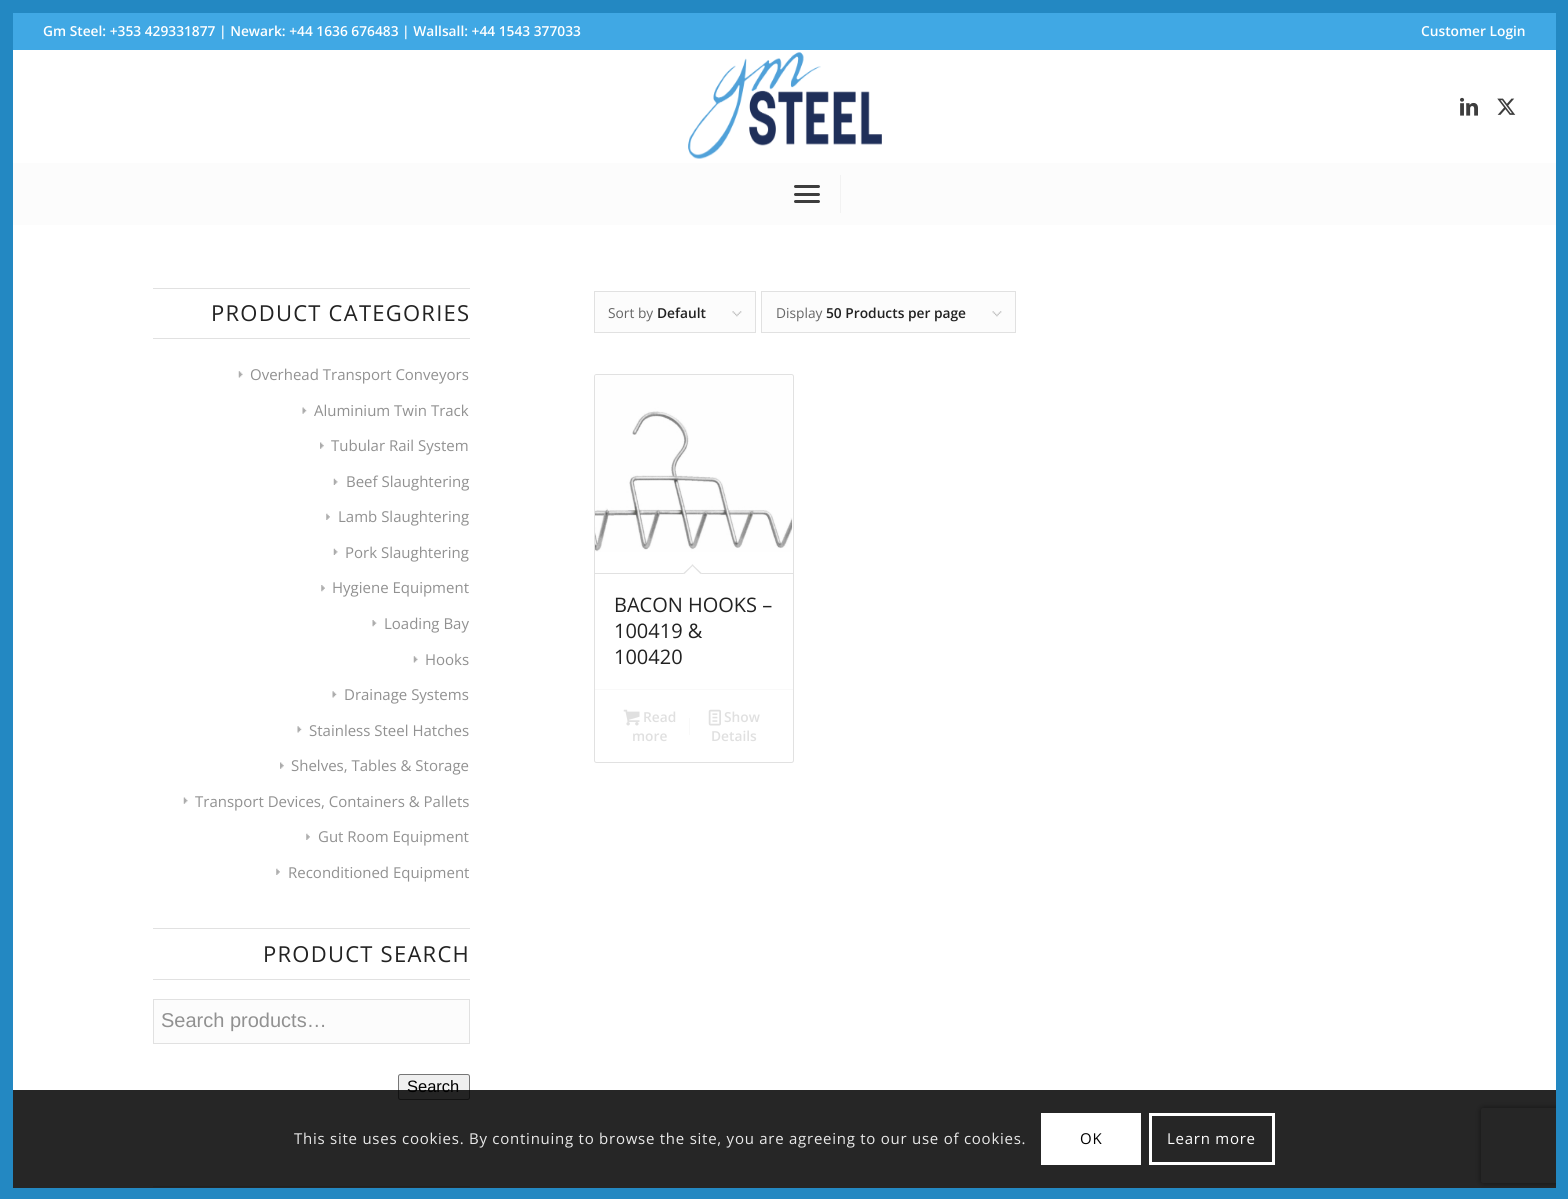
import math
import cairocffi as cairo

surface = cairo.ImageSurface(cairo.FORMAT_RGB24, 1568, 1199)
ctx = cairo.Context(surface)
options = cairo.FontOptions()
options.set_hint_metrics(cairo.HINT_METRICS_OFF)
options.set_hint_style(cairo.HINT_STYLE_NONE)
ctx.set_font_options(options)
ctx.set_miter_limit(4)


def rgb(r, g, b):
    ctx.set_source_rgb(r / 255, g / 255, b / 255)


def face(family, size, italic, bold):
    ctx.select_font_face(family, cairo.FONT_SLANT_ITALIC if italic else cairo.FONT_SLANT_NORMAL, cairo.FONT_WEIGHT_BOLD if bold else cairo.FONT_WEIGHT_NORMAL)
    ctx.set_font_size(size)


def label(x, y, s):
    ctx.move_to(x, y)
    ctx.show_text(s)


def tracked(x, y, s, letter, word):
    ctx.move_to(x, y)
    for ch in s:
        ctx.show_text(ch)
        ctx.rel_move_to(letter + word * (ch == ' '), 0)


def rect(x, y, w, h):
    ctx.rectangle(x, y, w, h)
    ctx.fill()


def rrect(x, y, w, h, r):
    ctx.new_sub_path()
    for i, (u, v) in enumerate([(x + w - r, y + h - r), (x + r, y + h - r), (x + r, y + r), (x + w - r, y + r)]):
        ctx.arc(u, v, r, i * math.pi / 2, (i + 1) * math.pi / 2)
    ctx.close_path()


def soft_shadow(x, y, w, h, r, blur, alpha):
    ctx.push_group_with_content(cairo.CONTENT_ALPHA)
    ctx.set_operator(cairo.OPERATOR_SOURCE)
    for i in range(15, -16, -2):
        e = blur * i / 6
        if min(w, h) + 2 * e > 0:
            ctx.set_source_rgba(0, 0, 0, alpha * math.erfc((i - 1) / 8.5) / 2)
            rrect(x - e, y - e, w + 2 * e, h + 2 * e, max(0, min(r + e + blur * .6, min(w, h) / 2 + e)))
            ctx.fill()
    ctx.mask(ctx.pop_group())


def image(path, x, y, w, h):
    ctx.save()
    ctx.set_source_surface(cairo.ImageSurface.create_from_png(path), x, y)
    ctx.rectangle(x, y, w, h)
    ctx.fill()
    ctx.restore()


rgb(255, 255, 255)
ctx.paint()
rgb(35, 136, 194)
rect(0, 0, 13, 1199)
rect(13, 0, 1543, 13)
ctx.save()
ctx.set_fill_rule(cairo.FILL_RULE_EVEN_ODD)
ctx.new_path()
ctx.move_to(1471, 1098)
ctx.line_to(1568, 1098)
ctx.line_to(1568, 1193)
ctx.line_to(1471, 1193)
ctx.close_path()
ctx.move_to(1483.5, 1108)
ctx.line_to(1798.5, 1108)
ctx.curve_to(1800, 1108, 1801, 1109, 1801, 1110.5)
ctx.line_to(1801, 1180.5)
ctx.curve_to(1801, 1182, 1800, 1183, 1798.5, 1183)
ctx.line_to(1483.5, 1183)
ctx.curve_to(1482, 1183, 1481, 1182, 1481, 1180.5)
ctx.line_to(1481, 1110.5)
ctx.curve_to(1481, 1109, 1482, 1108, 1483.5, 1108)
ctx.close_path()
ctx.clip()
rgb(128, 128, 128)
soft_shadow(1481, 1108, 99, 75, 2.5, 3, 1)
ctx.restore()
rect(1556, 0, 12, 1199)
rgb(64, 168, 228)
rect(13, 13, 1543, 37)
face('Open Sans SemiBold', 13.75, 0, 0)
rgb(255, 255, 255)
label(43, 36, 'Gm Steel: +353 429331877 | Newark: +44 1636 676483 | Wallsall: +44 1543 377033')
label(1421, 36, 'Customer Login')
image('image0.png', 688, 52, 194, 107)
image('image1.png', 1460, 97, 18, 19)
image('image2.png', 1497, 98, 19, 17)
rgb(252, 252, 252)
rect(13, 163, 1543, 62)
rgb(242, 242, 242)
rect(840, 175, 1, 38)
rgb(61, 61, 61)
rrect(794, 193, 26, 3, 1.5)
ctx.fill()
rrect(794, 185, 26, 3, 1.5)
ctx.fill()
rrect(794, 200, 26, 3, 1.5)
ctx.fill()
rgb(225, 225, 225)
rect(153, 288, 317, 1)
rect(153, 338, 317, 1)
face('Open Sans', 22, 0, 0)
rgb(34, 34, 34)
tracked(211, 321, 'PRODUCT CATEGORIES', 1.25, 0)
image('image3.png', 238, 371, 5, 7)
face('Open Sans', 15, 0, 0)
rgb(145, 145, 145)
label(250, 380, 'Overhead Transport Conveyors')
image('image4.png', 302, 407, 5, 7)
label(314, 416, 'Aluminium Twin Track')
image('image5.png', 320, 442, 4, 7)
label(331, 451, 'Tubular Rail System')
image('image6.png', 333, 478, 5, 7)
label(346, 487, 'Beef Slaughtering')
image('image7.png', 326, 513, 4, 7)
label(338, 522, 'Lamb Slaughtering')
image('image6.png', 333, 548, 5, 7)
label(345, 558, 'Pork Slaughtering')
image('image8.png', 321, 585, 4, 7)
label(332, 593, 'Hygiene Equipment')
image('image9.png', 372, 620, 5, 7)
label(384, 629, 'Loading Bay')
image('image3.png', 413, 656, 5, 7)
label(425, 665, 'Hooks')
image('image10.png', 332, 691, 5, 7)
label(344, 700, 'Drainage Systems')
image('image10.png', 297, 726, 5, 7)
label(309, 736, 'Stainless Steel Hatches')
image('image11.png', 280, 762, 4, 7)
label(291, 771, 'Shelves, Tables & Storage')
image('image12.png', 183, 797, 5, 7)
label(195, 807, 'Transport Devices, Containers & Pallets')
image('image7.png', 306, 833, 4, 7)
label(318, 842, 'Gut Room Equipment')
image('image7.png', 276, 868, 4, 7)
label(288, 878, 'Reconditioned Equipment')
rgb(225, 225, 225)
rect(153, 928, 317, 1)
rect(153, 979, 317, 1)
face('Open Sans', 22, 0, 0)
rgb(34, 34, 34)
tracked(263, 962, 'PRODUCT SEARCH', 1.25, 0)
rgb(252, 252, 252)
ctx.rectangle(153.5, 999.5, 316, 44)
ctx.fill_preserve()
rgb(225, 225, 225)
ctx.set_line_width(1)
ctx.stroke()
face('Liberation Sans', 20, 0, 0)
rgb(145, 145, 145)
label(161, 1027, 'Search products…')
rgb(239, 239, 239)
rrect(398.5, 1074.5, 71, 25, 2)
ctx.fill_preserve()
rgb(118, 118, 118)
ctx.stroke()
face('Liberation Sans', 16.5, 0, 0)
rgb(0, 0, 0)
label(407, 1092, 'Search')
rgb(225, 225, 225)
rect(153, 1186, 317, 1)
rgb(252, 252, 252)
rect(595, 292, 160, 40)
image('image13.png', 732, 311, 10, 6)
ctx.rectangle(594.5, 291.5, 161, 41)
rgb(225, 225, 225)
ctx.stroke()
face('Open Sans', 13.75, 0, 0)
rgb(102, 102, 102)
label(608, 318, 'Sort by')
face('Open Sans SemiBold', 13.75, 0, 0)
rgb(34, 34, 34)
label(657, 318, 'Default')
rgb(252, 252, 252)
rect(762, 292, 253, 40)
image('image14.png', 992, 311, 10, 6)
ctx.rectangle(761.5, 291.5, 254, 41)
rgb(225, 225, 225)
ctx.stroke()
face('Open Sans', 13.75, 0, 0)
rgb(102, 102, 102)
label(776, 318, 'Display')
face('Open Sans SemiBold', 13.75, 0, 0)
rgb(34, 34, 34)
label(826, 318, '50 Products per page')
rrect(594.5, 374.5, 199, 388, 2)
rgb(225, 225, 225)
ctx.stroke()
image('image15.png', 595, 375, 198, 177)
rect(595, 573, 198, 1)
rgb(255, 255, 255)
ctx.new_path()
ctx.move_to(692.5, 564.5)
ctx.line_to(701.5, 573)
ctx.line_to(692.5, 582)
ctx.line_to(683.5, 573)
ctx.close_path()
ctx.fill()
rgb(225, 225, 225)
ctx.new_path()
ctx.move_to(692.5, 564.5)
ctx.line_to(701.5, 573)
ctx.line_to(700.5, 574)
ctx.line_to(691.5, 565)
ctx.close_path()
ctx.fill()
ctx.new_path()
ctx.move_to(692.5, 564.5)
ctx.line_to(693.5, 565)
ctx.line_to(684.5, 574)
ctx.line_to(683.5, 573)
ctx.close_path()
ctx.fill()
face('Open Sans', 20, 0, 0)
rgb(34, 34, 34)
label(614, 612, 'BACON HOOKS –')
label(614, 638, '100419 &')
label(614, 664, '100420')
rgb(249, 249, 249)
rect(595, 689, 198, 1)
image('image16.png', 623, 709, 17, 17)
face('Open Sans SemiBold', 13.75, 0, 0)
rgb(224, 224, 224)
label(643, 722, 'Read')
label(632, 741, 'more')
rgb(249, 249, 249)
rect(689, 718, 1, 17)
image('image17.png', 708, 709, 13, 17)
rgb(224, 224, 224)
label(724, 722, 'Show')
label(711, 741, 'Details')
ctx.set_source_rgba(0, 0, 0, 0.85)
rect(13, 1090, 1543, 98)
face('Open Sans', 15, 0, 0)
rgb(233, 233, 233)
tracked(294, 1144, 'This site uses cookies. By continuing to browse the site, you are agreeing to our use of cookies.', 0.75, 0)
rgb(255, 255, 255)
rect(1041, 1113, 100, 52)
rgb(0, 0, 0)
tracked(1080, 1144, 'OK', 0.75, 0)
ctx.rectangle(1150.5, 1114.5, 123, 49)
rgb(255, 255, 255)
ctx.set_line_width(3)
ctx.stroke()
tracked(1167, 1144, 'Learn more', 0.75, 0)
rgb(35, 136, 194)
rect(13, 1188, 1543, 11)
surface.write_to_png('render.png')
